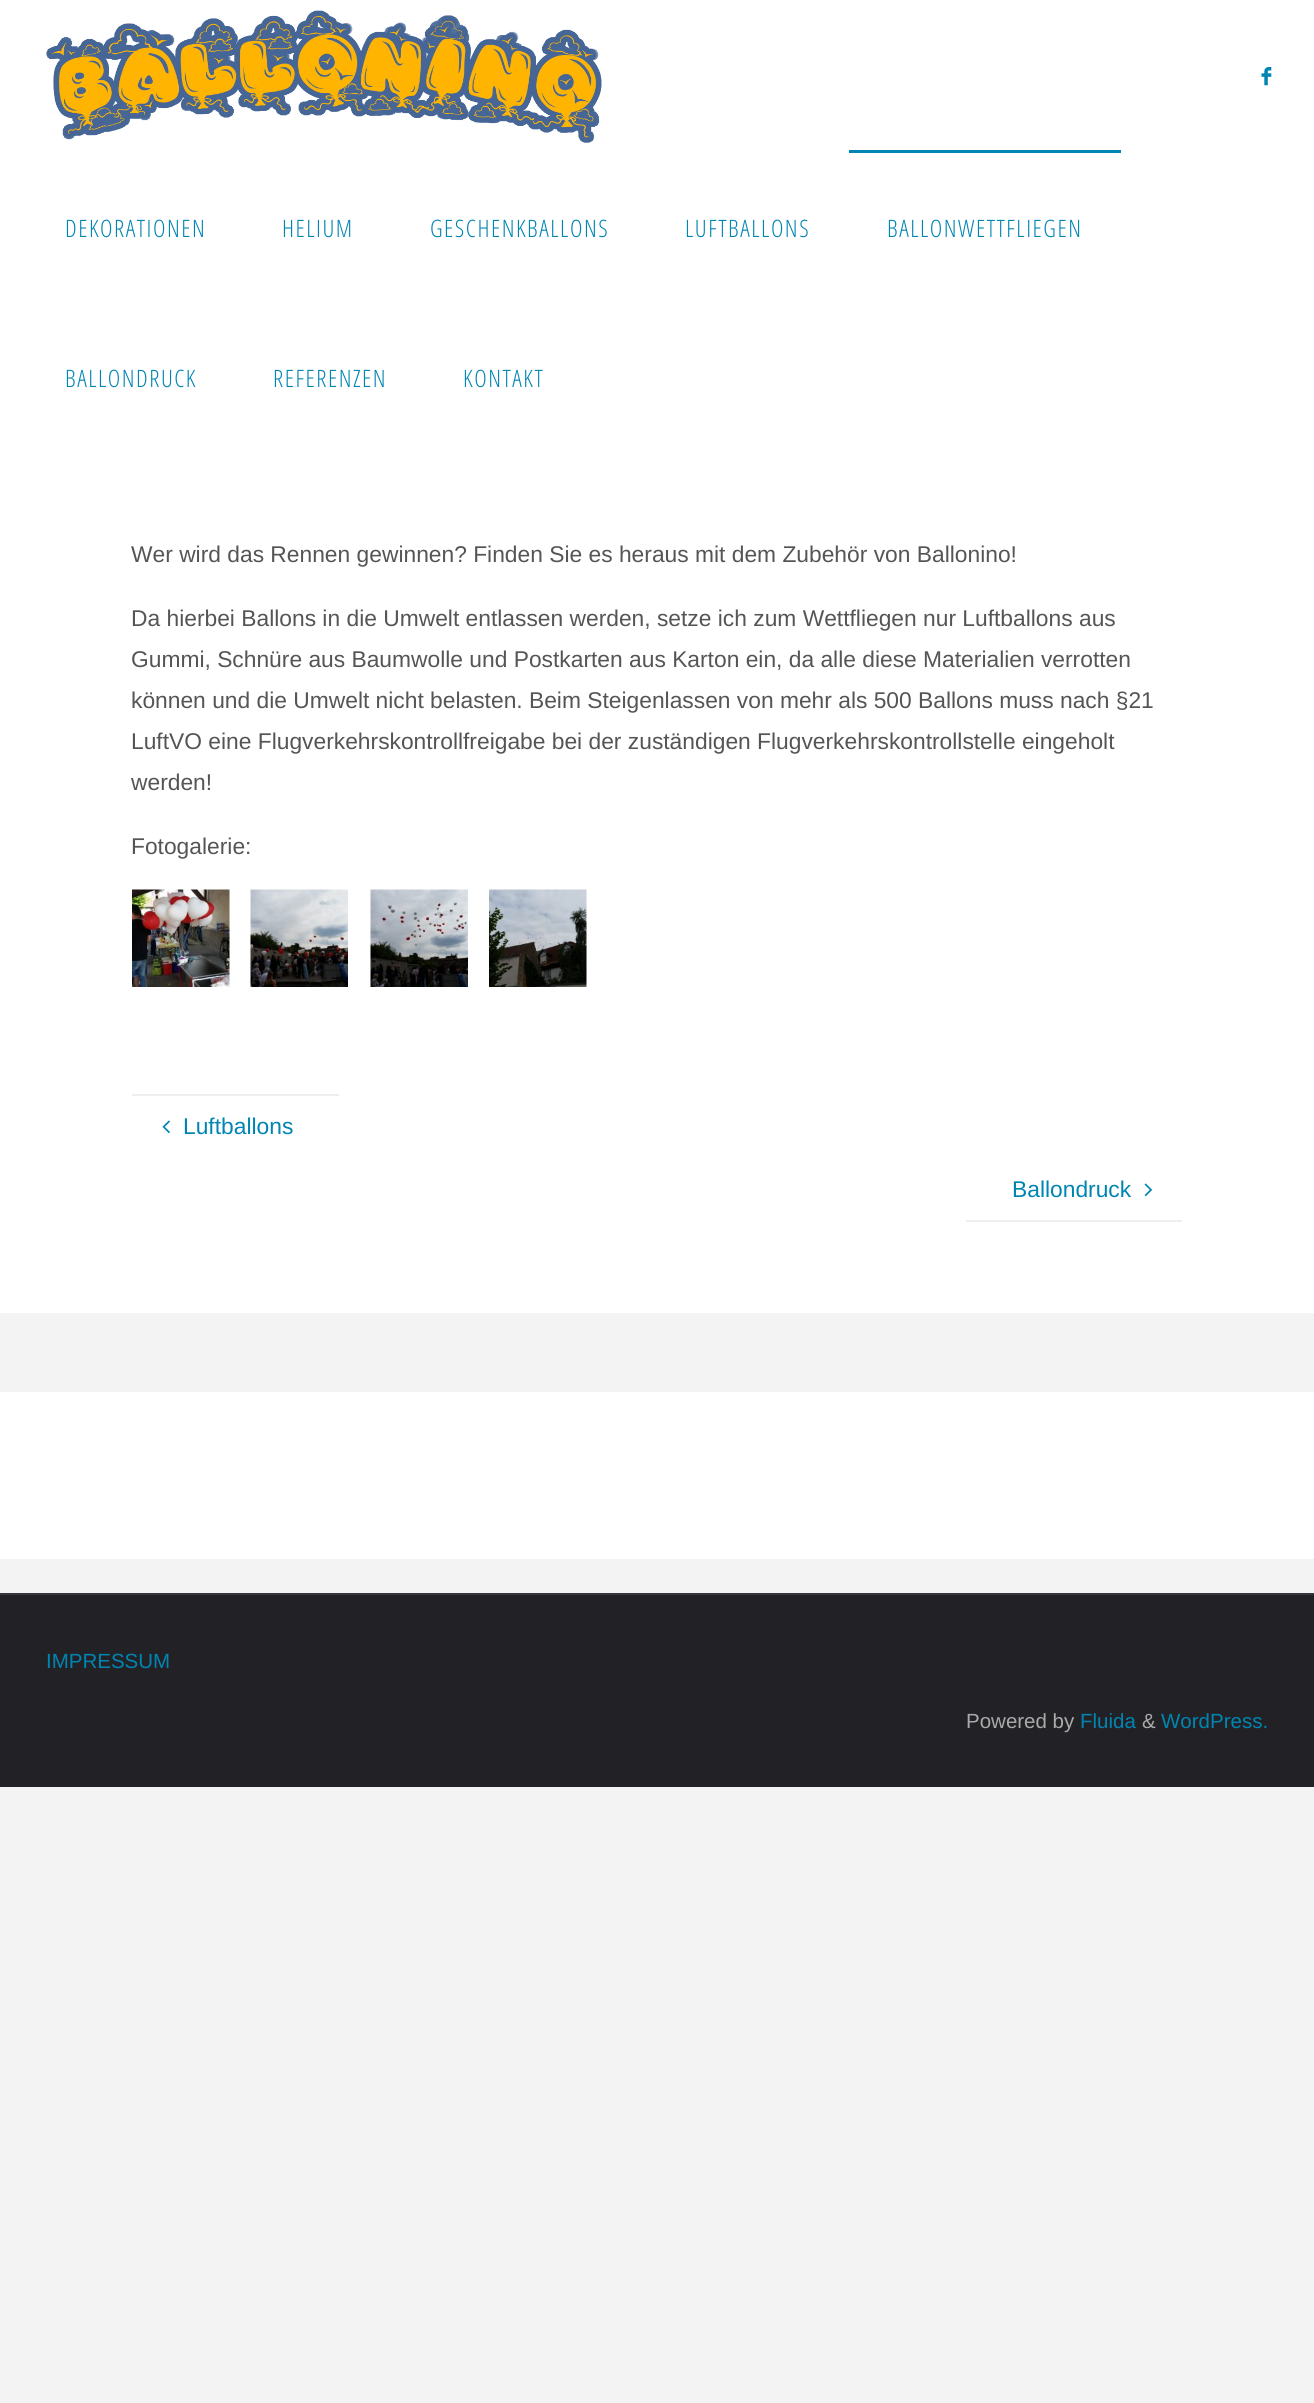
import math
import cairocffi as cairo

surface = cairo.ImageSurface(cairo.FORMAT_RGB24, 1314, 2403)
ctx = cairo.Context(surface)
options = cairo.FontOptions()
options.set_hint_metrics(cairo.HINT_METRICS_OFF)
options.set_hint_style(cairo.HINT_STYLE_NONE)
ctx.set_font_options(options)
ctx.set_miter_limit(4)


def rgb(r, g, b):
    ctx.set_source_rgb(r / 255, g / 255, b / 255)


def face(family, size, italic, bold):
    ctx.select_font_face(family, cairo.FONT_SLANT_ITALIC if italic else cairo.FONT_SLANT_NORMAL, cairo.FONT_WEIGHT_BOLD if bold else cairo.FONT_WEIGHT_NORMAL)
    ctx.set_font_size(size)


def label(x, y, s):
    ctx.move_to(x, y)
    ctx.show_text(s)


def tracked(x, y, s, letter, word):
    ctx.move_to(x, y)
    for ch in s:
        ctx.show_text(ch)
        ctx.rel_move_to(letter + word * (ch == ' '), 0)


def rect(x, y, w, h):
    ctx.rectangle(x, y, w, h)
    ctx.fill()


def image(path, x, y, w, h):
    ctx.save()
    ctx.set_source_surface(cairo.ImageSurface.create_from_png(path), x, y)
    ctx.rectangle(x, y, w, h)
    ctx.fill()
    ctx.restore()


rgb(243, 243, 243)
ctx.paint()
rgb(255, 255, 255)
rect(0, 0, 1314, 1313)
image('image0.png', 46, 10, 556, 133)
image('image1.png', 1261, 67, 11, 19)
face('Open Sans Condensed Light', 24, 0, 0)
rgb(0, 133, 178)
tracked(65, 237, 'DEKORATIONEN', 1.5, 0)
tracked(282, 237, 'HELIUM', 1.5, 0)
tracked(430, 237, 'GESCHENKBALLONS', 1.5, 0)
tracked(685, 237, 'LUFTBALLONS', 1.5, 0)
rect(849, 150, 272, 3)
tracked(887, 237, 'BALLONWETTFLIEGEN', 1.5, 0)
tracked(65, 387, 'BALLONDRUCK', 1.5, 0)
tracked(273, 387, 'REFERENZEN', 1.5, 0)
tracked(463, 387, 'KONTAKT', 1.5, 0)
face('Liberation Sans', 22.8, 0, 0)
rgb(85, 85, 85)
label(131, 562, 'Wer wird das Rennen gewinnen? Finden Sie es heraus mit dem Zubehör von Ballonino!')
label(131, 626, 'Da hierbei Ballons in die Umwelt entlassen werden, setze ich zum Wettfliegen nur Luftballons aus')
label(131, 667, 'Gummi, Schnüre aus Baumwolle und Postkarten aus Karton ein, da alle diese Materialien verrotten')
label(131, 708, 'können und die Umwelt nicht belasten. Beim Steigenlassen von mehr als 500 Ballons muss nach §21')
label(131, 749, 'LuftVO eine Flugverkehrskontrollfreigabe bei der zuständigen Flugverkehrskontrollstelle eingeholt')
label(131, 790, 'werden!')
label(131, 854, 'Fotogalerie:')
image('image2.png', 132, 889, 98, 98)
image('image3.png', 250, 889, 98, 98)
image('image4.png', 370, 889, 98, 98)
image('image5.png', 489, 889, 98, 98)
rgb(238, 238, 238)
rect(132, 1094, 207, 2)
image('image6.png', 162, 1120, 8, 14)
rgb(0, 133, 178)
label(183, 1134, 'Luftballons')
label(1012, 1197, 'Ballondruck')
image('image7.png', 1144, 1183, 8, 14)
rgb(238, 238, 238)
rect(966, 1220, 216, 2)
rgb(255, 255, 255)
rect(0, 1392, 1314, 167)
rgb(34, 34, 38)
rect(0, 1595, 1314, 192)
rgb(54, 54, 58)
rect(0, 1593, 1314, 2)
face('Liberation Sans', 20.5, 0, 0)
rgb(0, 133, 178)
label(46, 1668, 'IMPRESSUM')
rgb(170, 170, 170)
label(966, 1728, 'Powered by')
rgb(0, 133, 178)
label(1080, 1728, 'Fluida')
rgb(170, 170, 170)
label(1142, 1728, '&')
rgb(0, 133, 178)
label(1161, 1728, 'WordPress.')
surface.write_to_png('render.png')
